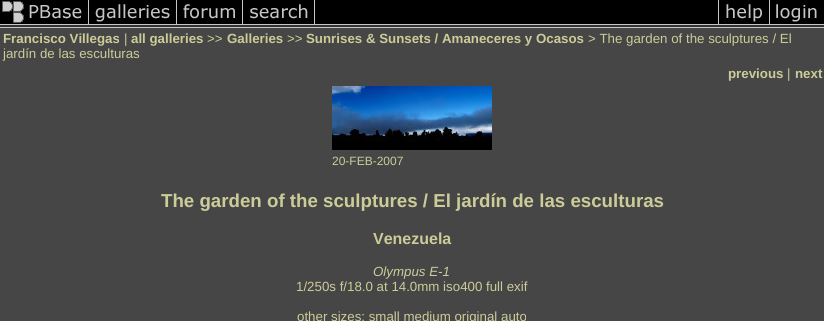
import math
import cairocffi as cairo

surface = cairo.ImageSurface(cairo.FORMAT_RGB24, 824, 321)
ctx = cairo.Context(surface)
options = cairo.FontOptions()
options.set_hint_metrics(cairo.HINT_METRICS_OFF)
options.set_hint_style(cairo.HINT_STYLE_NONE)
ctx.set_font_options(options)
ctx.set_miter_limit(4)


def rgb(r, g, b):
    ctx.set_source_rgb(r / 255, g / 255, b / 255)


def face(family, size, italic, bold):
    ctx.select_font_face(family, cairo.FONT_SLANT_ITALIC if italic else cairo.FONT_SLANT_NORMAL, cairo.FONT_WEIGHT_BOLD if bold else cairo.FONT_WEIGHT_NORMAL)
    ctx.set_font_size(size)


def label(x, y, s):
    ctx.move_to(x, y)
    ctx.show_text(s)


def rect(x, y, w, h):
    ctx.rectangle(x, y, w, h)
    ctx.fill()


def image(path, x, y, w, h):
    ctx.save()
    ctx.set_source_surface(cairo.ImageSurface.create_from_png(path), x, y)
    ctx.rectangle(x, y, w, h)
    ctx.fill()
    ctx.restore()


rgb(70, 70, 70)
ctx.paint()
image('image0.png', 0, 0, 89, 28)
image('image1.png', 89, 0, 88, 28)
image('image2.png', 177, 0, 66, 28)
image('image3.png', 243, 0, 72, 28)
image('image4.png', 315, 0, 403, 28)
image('image5.png', 718, 0, 52, 28)
image('image6.png', 770, 0, 54, 28)
face('Liberation Sans', 13.3, 0, 1)
rgb(204, 204, 153)
label(3, 43, 'Francisco Villegas')
face('Liberation Sans', 13.3, 0, 0)
label(124, 43, '|')
face('Liberation Sans', 13.3, 0, 1)
label(131, 43, 'all galleries')
face('Liberation Sans', 13.3, 0, 0)
label(207, 43, '>>')
face('Liberation Sans', 13.3, 0, 1)
label(227, 43, 'Galleries')
face('Liberation Sans', 13.3, 0, 0)
label(287, 43, '>>')
face('Liberation Sans', 13.3, 0, 1)
label(306, 43, 'Sunrises & Sunsets / Amaneceres y Ocasos')
face('Liberation Sans', 13.3, 0, 0)
label(588, 43, '> The garden of the sculptures / El')
label(3, 58, 'jardín de las esculturas')
face('Liberation Sans', 13.3, 0, 1)
label(728, 78, 'previous')
face('Liberation Sans', 13.3, 0, 0)
label(787, 78, '|')
face('Liberation Sans', 13.3, 0, 1)
label(795, 78, 'next')
image('image7.png', 332, 86, 160, 56)
rgb(0, 0, 0)
rect(332, 142, 160, 8)
face('Liberation Sans', 12, 0, 0)
rgb(204, 204, 153)
label(332, 165, '20-FEB-2007')
face('Liberation Sans', 18.7, 0, 1)
label(161, 207, 'The garden of the sculptures / El jardín de las esculturas')
face('Liberation Sans', 16, 0, 1)
label(373, 244, 'Venezuela')
face('Liberation Sans', 13.3, 1, 0)
label(373, 276, 'Olympus E-1')
face('Liberation Sans', 13.3, 0, 0)
label(296, 291, '1/250s f/18.0 at 14.0mm iso400 full exif')
label(297, 321, 'other sizes: small medium original auto')
surface.write_to_png('render.png')
